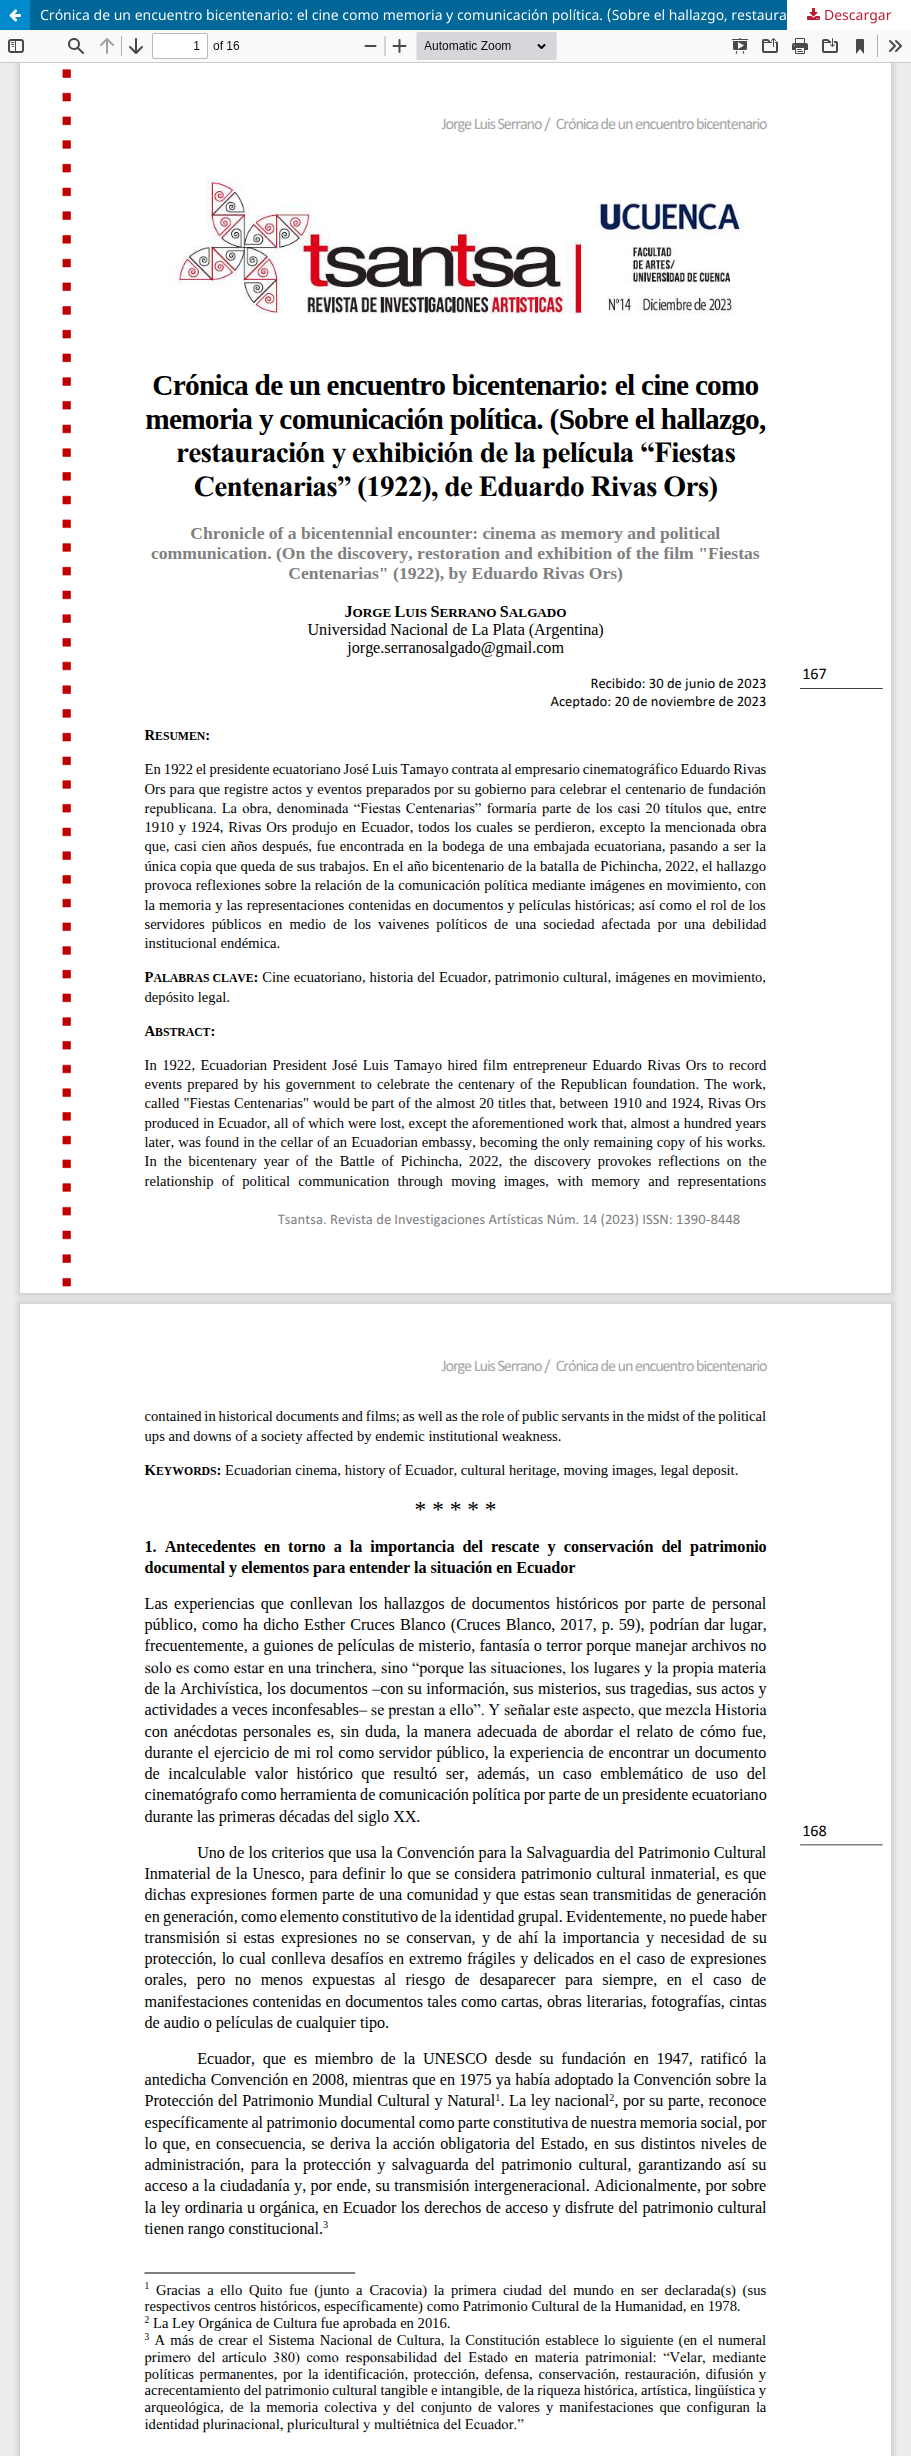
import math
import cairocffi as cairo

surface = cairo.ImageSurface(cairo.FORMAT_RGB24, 911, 2456)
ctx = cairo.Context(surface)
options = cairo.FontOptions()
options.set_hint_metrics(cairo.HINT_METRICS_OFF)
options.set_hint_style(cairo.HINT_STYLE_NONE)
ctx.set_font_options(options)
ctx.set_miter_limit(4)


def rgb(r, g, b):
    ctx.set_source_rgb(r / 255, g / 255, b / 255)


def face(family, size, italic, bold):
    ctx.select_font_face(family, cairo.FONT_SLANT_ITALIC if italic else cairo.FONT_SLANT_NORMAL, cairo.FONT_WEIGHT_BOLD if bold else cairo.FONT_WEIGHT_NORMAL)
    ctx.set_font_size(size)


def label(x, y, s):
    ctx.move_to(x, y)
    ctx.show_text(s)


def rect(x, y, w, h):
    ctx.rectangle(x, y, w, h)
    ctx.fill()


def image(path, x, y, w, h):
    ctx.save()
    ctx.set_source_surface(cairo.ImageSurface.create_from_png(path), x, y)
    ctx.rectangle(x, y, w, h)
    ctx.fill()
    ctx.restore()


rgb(255, 255, 255)
ctx.paint()
rgb(0, 103, 152)
rect(30, 0, 757, 30)
rgb(0, 138, 203)
rect(0, 0, 30, 30)
image('image0.png', 9, 9, 12, 13)
face('Noto Sans', 14, 0, 0)
rgb(255, 255, 255)
label(40, 20, 'Crónica de un encuentro bicentenario: el cine como memoria y comunicación política. (Sobre el hallazgo, restaura')
image('image1.png', 807, 8, 13, 12)
rgb(189, 27, 50)
label(824, 20, 'Descargar')
image('image2.png', 0, 30, 911, 2426)
surface.write_to_png('render.png')
